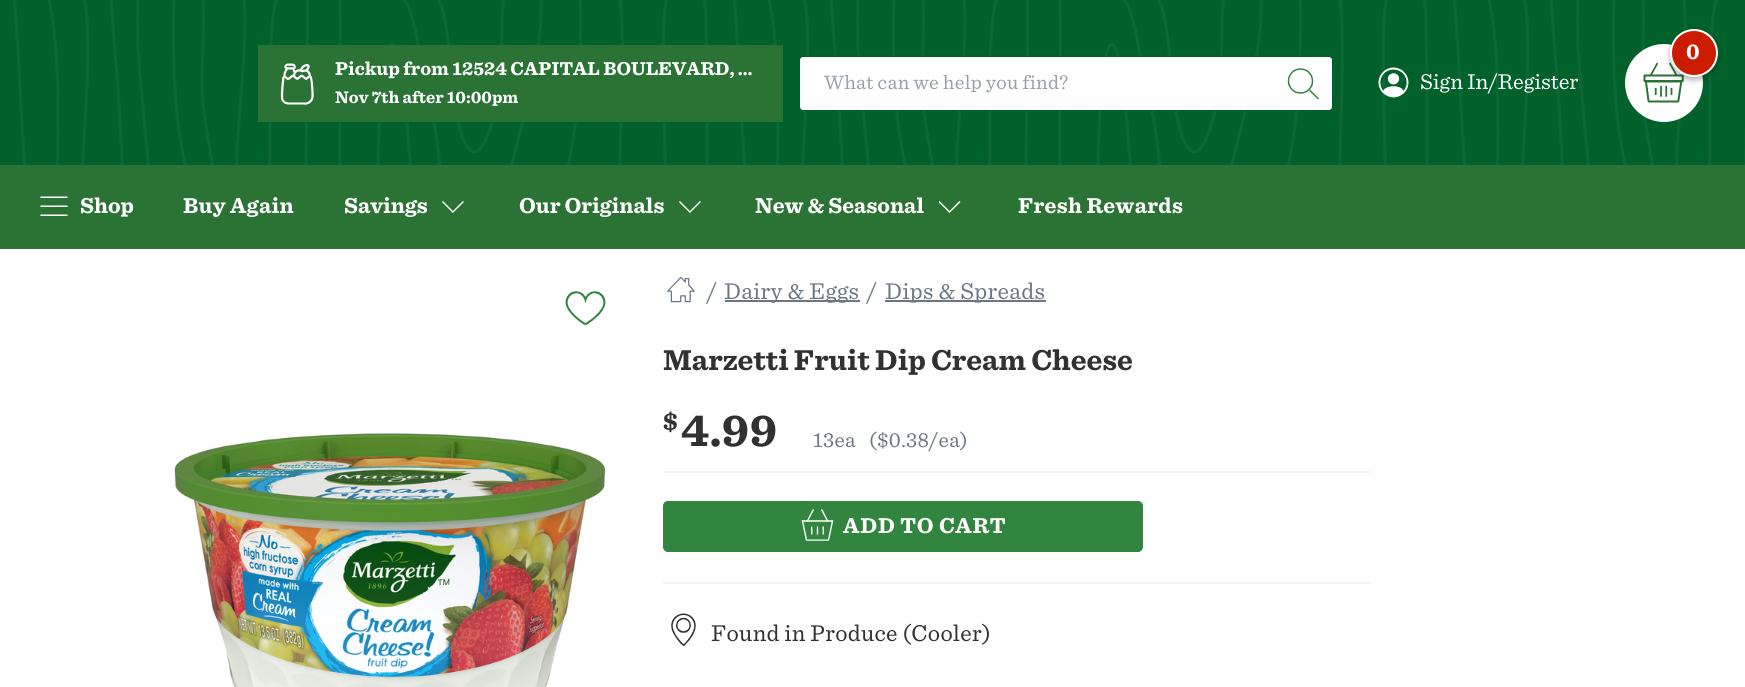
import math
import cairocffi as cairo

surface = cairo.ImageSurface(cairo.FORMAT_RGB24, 1745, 687)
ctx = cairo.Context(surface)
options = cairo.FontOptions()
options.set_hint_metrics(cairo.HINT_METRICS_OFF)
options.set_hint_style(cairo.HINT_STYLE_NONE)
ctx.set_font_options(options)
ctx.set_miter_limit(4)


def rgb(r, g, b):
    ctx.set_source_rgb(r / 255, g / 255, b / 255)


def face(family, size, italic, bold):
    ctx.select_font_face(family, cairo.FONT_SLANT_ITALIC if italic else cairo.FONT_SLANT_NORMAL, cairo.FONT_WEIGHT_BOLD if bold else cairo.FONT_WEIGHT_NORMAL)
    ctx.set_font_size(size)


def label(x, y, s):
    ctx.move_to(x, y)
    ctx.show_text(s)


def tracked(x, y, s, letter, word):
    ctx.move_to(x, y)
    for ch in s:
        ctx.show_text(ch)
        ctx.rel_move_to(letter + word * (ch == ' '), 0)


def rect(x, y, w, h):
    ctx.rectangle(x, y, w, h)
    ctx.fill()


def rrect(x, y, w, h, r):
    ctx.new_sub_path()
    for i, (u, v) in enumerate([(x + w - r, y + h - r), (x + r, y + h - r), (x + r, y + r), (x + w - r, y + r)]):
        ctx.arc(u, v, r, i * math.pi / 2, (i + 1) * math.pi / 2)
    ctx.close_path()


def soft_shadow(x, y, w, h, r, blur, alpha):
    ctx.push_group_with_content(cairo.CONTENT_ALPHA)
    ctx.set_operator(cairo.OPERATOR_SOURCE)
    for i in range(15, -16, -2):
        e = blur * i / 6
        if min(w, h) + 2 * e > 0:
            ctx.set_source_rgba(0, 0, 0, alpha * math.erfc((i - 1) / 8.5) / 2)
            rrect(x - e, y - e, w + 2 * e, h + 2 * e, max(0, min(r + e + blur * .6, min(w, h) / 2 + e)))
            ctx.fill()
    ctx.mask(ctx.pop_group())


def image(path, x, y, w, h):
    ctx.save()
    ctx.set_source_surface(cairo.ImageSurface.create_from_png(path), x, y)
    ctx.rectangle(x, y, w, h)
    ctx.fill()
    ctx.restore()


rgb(255, 255, 255)
ctx.paint()
rgb(0, 97, 43)
rect(0, 0, 1745, 165)
image('image0.png', 13, 0, 1732, 165)
rgb(255, 255, 255)
ctx.arc(1664, 83, 39, 0, 2 * math.pi)
ctx.fill()
image('image1.png', 1643, 62, 41, 41)
rgb(0, 0, 0)
soft_shadow(1670, 32, 48, 48, 24, 3, 0.3)
rgb(203, 28, 0)
ctx.arc(1694, 53, 23, 0, 2 * math.pi)
ctx.fill_preserve()
rgb(255, 255, 255)
ctx.stroke()
face('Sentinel', 22.5, 0, 1)
label(1686, 59, '0')
rgb(42, 115, 53)
rect(258, 45, 525, 77)
image('image2.png', 280, 63, 34, 42)
face('Sentinel', 19.5, 0, 1)
rgb(255, 255, 255)
label(335, 75, 'Pickup from 12524 CAPITAL BOULEVARD, …')
face('Sentinel', 17.5, 0, 1)
label(335, 103, 'Nov 7th after 10:00pm')
rrect(799, 57, 534, 53, 4)
rgb(0, 97, 43)
ctx.stroke()
rgb(255, 255, 255)
ctx.new_path()
ctx.move_to(803, 57)
ctx.line_to(1272, 57)
ctx.line_to(1272, 110)
ctx.line_to(803, 110)
ctx.curve_to(801.5, 110, 800, 108.5, 800, 107)
ctx.line_to(800, 60)
ctx.curve_to(800, 58.5, 801.5, 57, 803, 57)
ctx.close_path()
ctx.fill()
face('Sentinel', 20.4, 0, 0)
rgb(153, 160, 168)
tracked(824, 89, 'What can we help you find?', 0.3, 0)
rgb(255, 255, 255)
ctx.new_path()
ctx.move_to(1272, 57)
ctx.line_to(1329, 57)
ctx.curve_to(1330.5, 57, 1332, 58.5, 1332, 60)
ctx.line_to(1332, 107)
ctx.curve_to(1332, 108.5, 1330.5, 110, 1329, 110)
ctx.line_to(1272, 110)
ctx.close_path()
ctx.fill()
image('image3.png', 1287, 68, 32, 32)
image('image4.png', 1378, 67, 31, 31)
face('Sentinel', 22.5, 0, 0)
label(1420, 89, 'Sign In/Register')
rgb(42, 115, 53)
rect(0, 165, 1745, 84)
image('image5.png', 40, 196, 28, 20)
face('Sentinel', 22.5, 0, 1)
rgb(255, 255, 255)
label(80, 213, 'Shop')
tracked(183, 213, 'Buy Again', 0.3, 0)
label(344, 213, 'Savings')
image('image6.png', 442, 201, 22, 12)
label(519, 213, 'Our Originals')
image('image6.png', 679, 201, 22, 12)
label(755, 213, 'New & Seasonal')
image('image7.png', 938, 201, 23, 12)
tracked(1018, 213, 'Fresh Rewards', 0.3, 0)
image('image8.png', 565, 291, 41, 34)
image('image9.png', 173, 432, 433, 255)
image('image10.png', 667, 276, 28, 27)
face('Sentinel', 24, 0, 0)
rgb(109, 119, 131)
tracked(707, 299, '/', 0.3, 0)
rect(725, 300, 135, 2)
tracked(724, 299, 'Dairy & Eggs', 0.3, 0)
tracked(867, 299, '/', 0.3, 0)
rect(885, 300, 161, 2)
tracked(885, 299, 'Dips & Spreads', 0.3, 0)
face('Sentinel', 30, 0, 1)
rgb(49, 49, 49)
label(663, 370, 'Marzetti Fruit Dip Cream Cheese')
face('Sentinel', 26, 0, 1)
tracked(663, 430, '$', 0.3, 0)
face('Sentinel', 47, 0, 1)
tracked(681, 446, '4.99', 0.3, 0)
face('Sentinel', 21.5, 0, 0)
rgb(109, 119, 131)
tracked(813, 447, '13ea', 0.3, 0)
tracked(869, 447, '($0.38/ea)', 0.3, 0)
rgb(247, 240, 240)
rect(663, 471, 708, 2)
rect(663, 582, 708, 2)
rgb(49, 133, 62)
rrect(663, 501, 480, 51, 5)
ctx.fill()
image('image11.png', 801, 509, 33, 32)
face('Sentinel', 22.5, 0, 1)
rgb(255, 255, 255)
tracked(843, 533, 'ADD TO CART', 0.75, 0)
image('image12.png', 671, 613, 25, 34)
face('Sentinel', 24, 0, 0)
rgb(49, 49, 49)
tracked(711, 641, 'Found in Produce (Cooler)', 0.3, 0)
surface.write_to_png('render.png')
